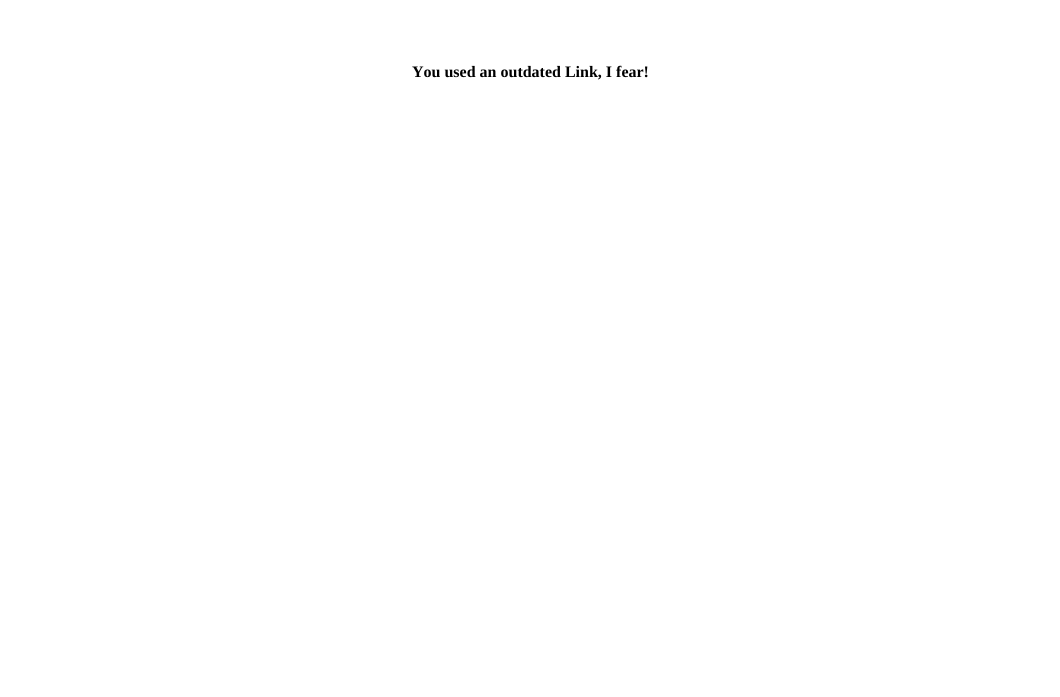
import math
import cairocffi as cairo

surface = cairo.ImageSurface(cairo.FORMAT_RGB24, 1060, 697)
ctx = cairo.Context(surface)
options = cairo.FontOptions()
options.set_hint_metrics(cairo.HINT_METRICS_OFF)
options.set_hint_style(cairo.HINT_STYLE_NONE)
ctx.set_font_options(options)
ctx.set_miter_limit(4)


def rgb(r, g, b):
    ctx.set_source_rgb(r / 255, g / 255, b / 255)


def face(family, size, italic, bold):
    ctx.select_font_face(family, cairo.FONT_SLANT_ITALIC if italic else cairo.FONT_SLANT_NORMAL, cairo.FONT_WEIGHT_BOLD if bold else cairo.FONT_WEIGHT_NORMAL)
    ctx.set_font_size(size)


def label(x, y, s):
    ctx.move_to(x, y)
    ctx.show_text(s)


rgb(255, 255, 255)
ctx.paint()
face('Liberation Serif', 16, 0, 1)
rgb(0, 0, 0)
label(412, 77, 'You used an outdated Link, I fear!')
surface.write_to_png('render.png')
